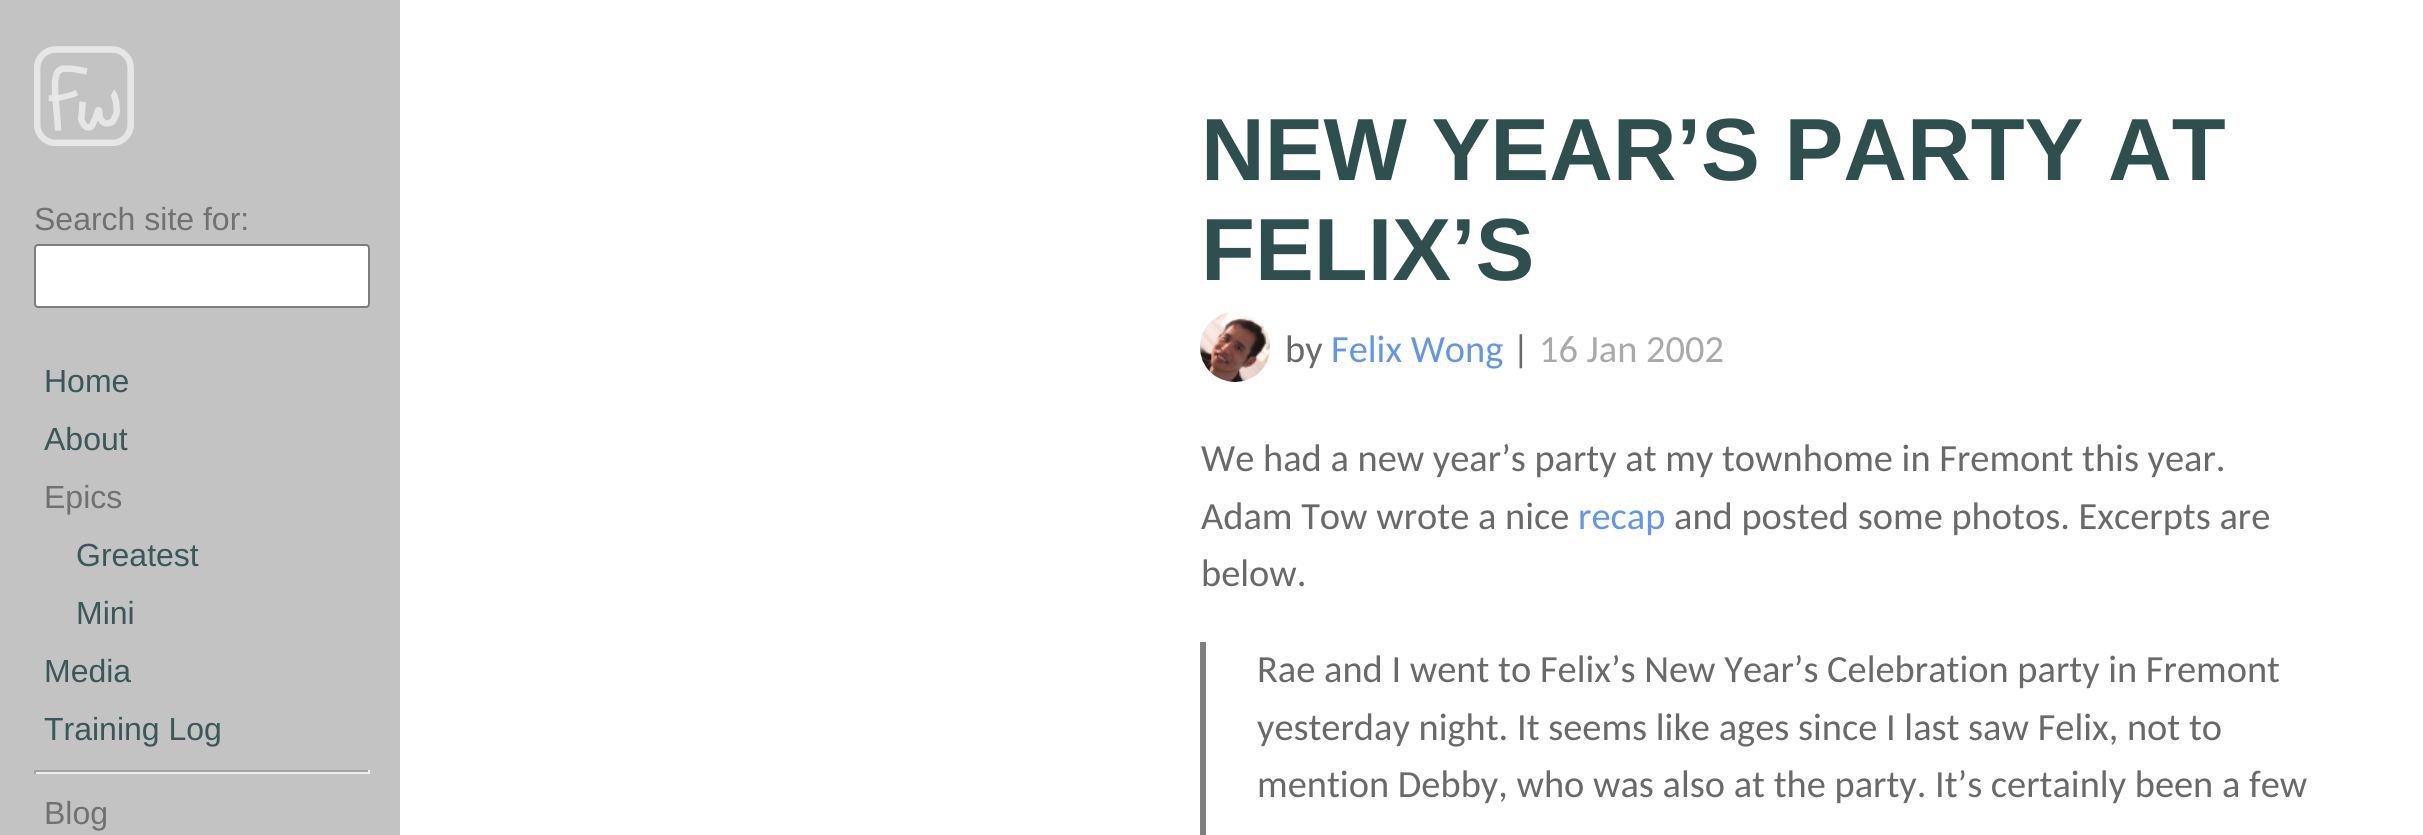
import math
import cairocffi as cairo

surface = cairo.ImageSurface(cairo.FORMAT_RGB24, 2423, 835)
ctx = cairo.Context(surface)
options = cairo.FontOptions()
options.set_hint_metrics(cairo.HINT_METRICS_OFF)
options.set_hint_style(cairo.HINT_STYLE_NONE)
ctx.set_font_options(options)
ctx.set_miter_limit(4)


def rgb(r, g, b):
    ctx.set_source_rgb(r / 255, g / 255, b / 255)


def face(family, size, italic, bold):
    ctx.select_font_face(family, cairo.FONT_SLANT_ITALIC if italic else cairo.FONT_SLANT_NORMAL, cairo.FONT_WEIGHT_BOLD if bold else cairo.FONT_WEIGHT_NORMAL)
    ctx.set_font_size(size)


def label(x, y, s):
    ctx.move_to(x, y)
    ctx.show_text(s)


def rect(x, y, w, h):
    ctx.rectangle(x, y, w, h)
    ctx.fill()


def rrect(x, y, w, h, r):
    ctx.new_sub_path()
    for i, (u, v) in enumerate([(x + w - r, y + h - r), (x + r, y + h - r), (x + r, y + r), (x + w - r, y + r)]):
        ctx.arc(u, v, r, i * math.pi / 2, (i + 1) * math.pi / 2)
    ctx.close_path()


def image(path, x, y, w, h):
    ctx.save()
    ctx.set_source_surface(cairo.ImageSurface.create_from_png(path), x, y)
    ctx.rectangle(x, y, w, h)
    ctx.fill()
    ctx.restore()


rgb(255, 255, 255)
ctx.paint()
rgb(195, 195, 195)
rect(0, 0, 400, 835)
image('image0.png', 34, 46, 100, 100)
face('Liberation Sans', 32, 0, 0)
rgb(113, 113, 113)
label(34, 230, 'Search site for:')
rgb(255, 255, 255)
rrect(35, 245, 334, 62, 3)
ctx.fill_preserve()
rgb(125, 125, 125)
ctx.stroke()
rgb(57, 88, 88)
label(44, 392, 'Home')
label(44, 450, 'About')
rgb(113, 113, 113)
label(44, 508, 'Epics')
rgb(57, 88, 88)
label(76, 566, 'Greatest')
label(76, 624, 'Mini')
label(44, 682, 'Media')
label(44, 740, 'Training Log')
rgb(164, 164, 164)
rect(34, 770, 336, 2)
rgb(239, 239, 239)
rect(368, 770, 2, 4)
rect(34, 772, 336, 2)
rgb(164, 164, 164)
rect(34, 770, 2, 4)
rgb(113, 113, 113)
label(44, 824, 'Blog')
face('Liberation Sans', 88.25, 0, 1)
rgb(47, 79, 79)
label(1201, 180, 'NEW YEAR’S PARTY AT')
label(1201, 280, 'FELIX’S')
image('image1.png', 1200, 312, 70, 70)
face('Carlito', 38.4, 0, 0)
rgb(105, 105, 105)
label(1285, 362, 'by')
rgb(100, 149, 237)
label(1331, 362, 'Felix Wong')
rgb(105, 105, 105)
label(1512, 362, '|')
rgb(169, 169, 169)
label(1539, 362, '16 Jan 2002')
rgb(105, 105, 105)
label(1201, 471, 'We had a new year’s party at my townhome in Fremont this year.')
label(1201, 529, 'Adam Tow wrote a nice')
rgb(100, 149, 237)
label(1578, 529, 'recap')
rgb(105, 105, 105)
label(1674, 529, 'and posted some photos. Excerpts are')
label(1201, 586, 'below.')
rgb(128, 128, 128)
rect(1200, 642, 6, 193)
rgb(105, 105, 105)
label(1257, 682, 'Rae and I went to Felix’s New Year’s Celebration party in Fremont')
label(1257, 740, 'yesterday night. It seems like ages since I last saw Felix, not to')
label(1257, 797, 'mention Debby, who was also at the party. It’s certainly been a few')
surface.write_to_png('render.png')
